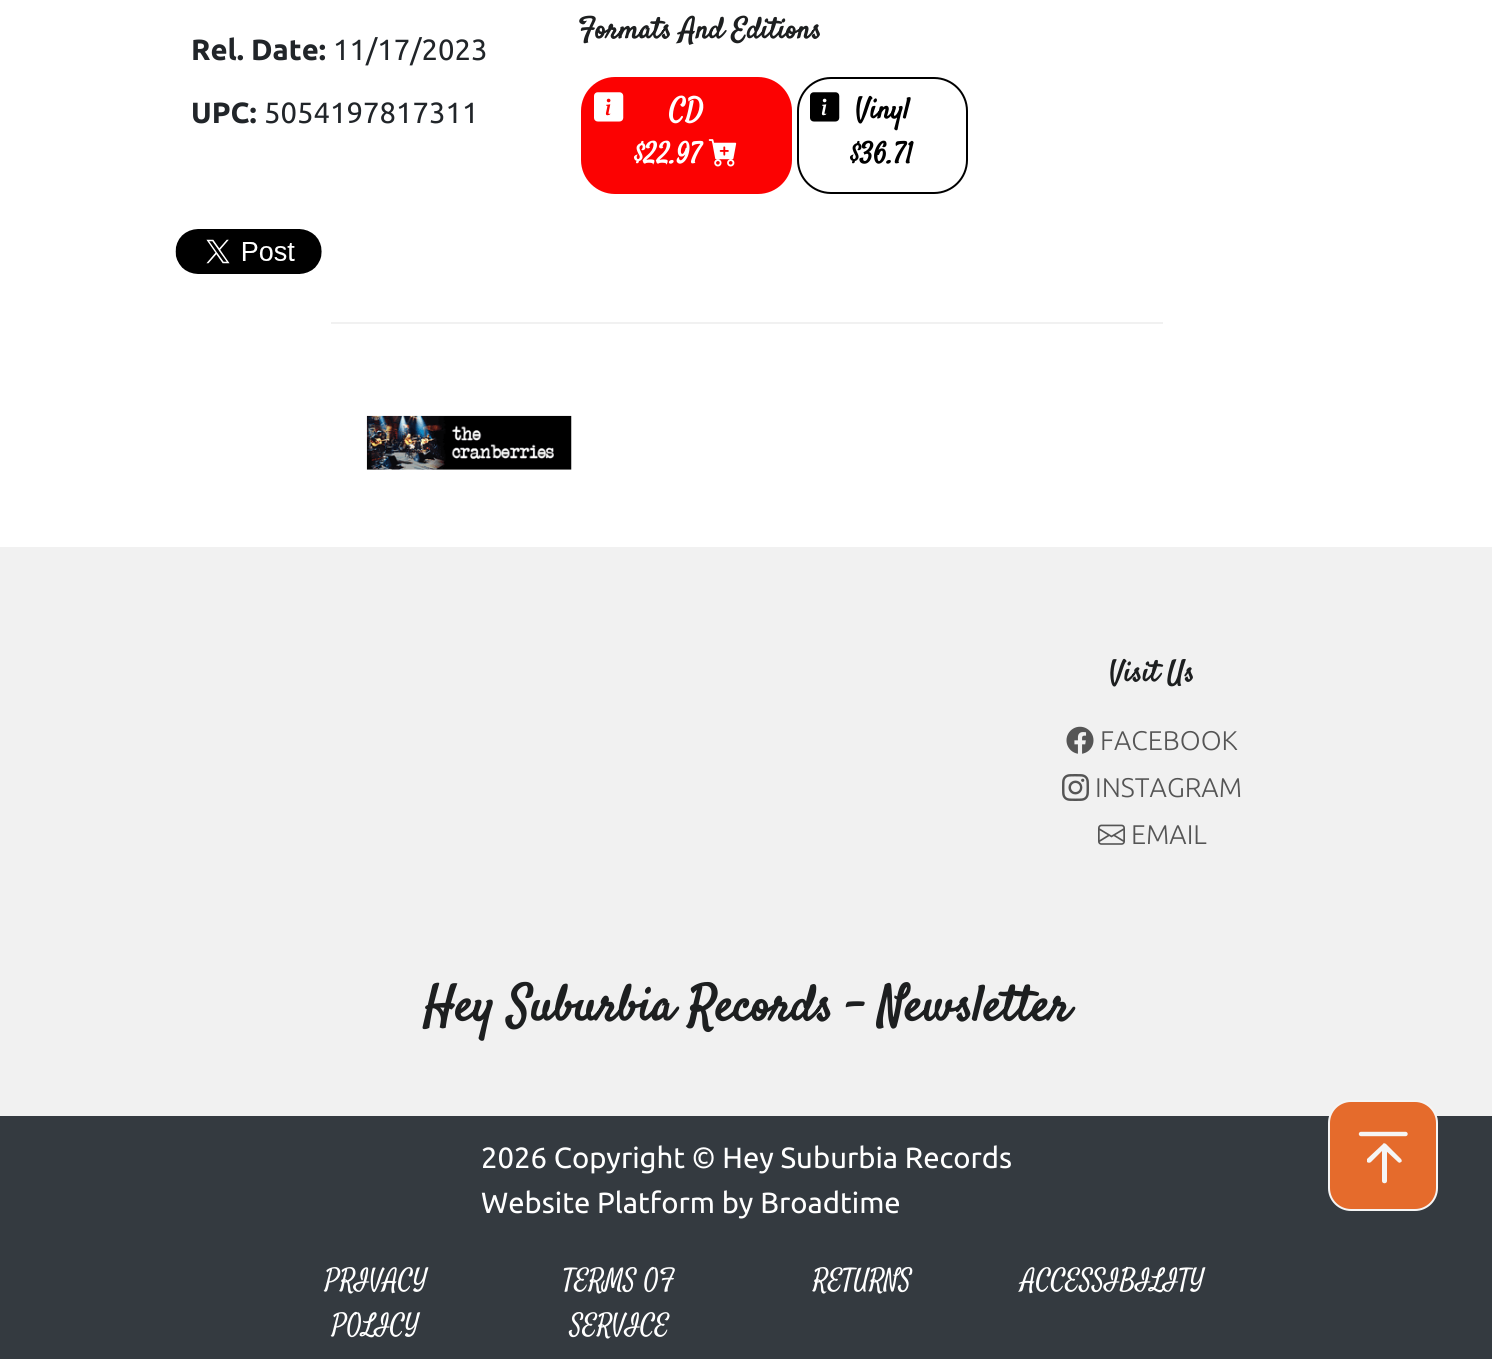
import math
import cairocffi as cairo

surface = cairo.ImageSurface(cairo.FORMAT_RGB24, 1492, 1359)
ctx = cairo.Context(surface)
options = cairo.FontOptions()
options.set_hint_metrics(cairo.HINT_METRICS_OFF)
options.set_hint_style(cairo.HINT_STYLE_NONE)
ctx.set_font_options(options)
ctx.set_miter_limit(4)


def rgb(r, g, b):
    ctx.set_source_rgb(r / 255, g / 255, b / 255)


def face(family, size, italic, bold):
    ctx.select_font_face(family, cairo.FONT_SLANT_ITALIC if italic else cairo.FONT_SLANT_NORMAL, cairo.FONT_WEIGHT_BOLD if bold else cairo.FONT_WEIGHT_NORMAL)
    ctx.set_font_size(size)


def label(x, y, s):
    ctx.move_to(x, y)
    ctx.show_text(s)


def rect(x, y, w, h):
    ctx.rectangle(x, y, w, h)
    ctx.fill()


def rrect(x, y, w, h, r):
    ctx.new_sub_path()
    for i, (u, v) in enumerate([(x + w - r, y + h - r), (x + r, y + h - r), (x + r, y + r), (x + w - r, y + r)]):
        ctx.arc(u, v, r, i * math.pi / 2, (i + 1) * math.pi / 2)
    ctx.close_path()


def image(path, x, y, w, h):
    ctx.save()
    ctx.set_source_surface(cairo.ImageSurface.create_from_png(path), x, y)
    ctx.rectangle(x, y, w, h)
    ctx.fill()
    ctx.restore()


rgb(255, 255, 255)
ctx.paint()
face('Ubuntu', 29.25, 0, 1)
rgb(33, 37, 41)
label(191, 60, 'Rel. Date:')
face('Ubuntu', 29.25, 0, 0)
label(333, 60, '11/17/2023')
face('Ubuntu', 29.25, 0, 1)
label(191, 123, 'UPC:')
face('Ubuntu', 29.25, 0, 0)
label(264, 123, '5054197817311')
image('image0.png', 175, 229, 147, 45)
face('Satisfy', 29.25, 0, 1)
rgb(29, 31, 32)
label(578, 38, 'Formats And Editions')
rgb(252, 2, 2)
rrect(582, 78, 209, 115, 33)
ctx.fill_preserve()
ctx.stroke()
image('image1.png', 594, 92, 30, 30)
rgb(255, 255, 255)
label(669, 118, 'CD')
label(635, 163, '$22.97')
image('image2.png', 708, 139, 29, 28)
rrect(798, 78, 169, 115, 33)
rgb(0, 0, 0)
ctx.stroke()
image('image3.png', 810, 92, 30, 30)
label(855, 118, 'Vinyl')
label(851, 163, '$36.71')
rgb(241, 241, 241)
rect(331, 322, 832, 2)
image('image4.png', 366, 415, 206, 55)
rect(0, 547, 1492, 569)
rgb(29, 31, 32)
label(1109, 681, 'Visit Us')
image('image5.png', 1066, 726, 28, 28)
face('Ubuntu Light', 27, 0, 0)
rgb(85, 85, 85)
label(1100, 750, 'FACEBOOK')
image('image6.png', 1062, 774, 27, 27)
label(1095, 797, 'INSTAGRAM')
image('image7.png', 1098, 824, 27, 21)
label(1131, 844, 'EMAIL')
face('Satisfy', 49.5, 0, 1)
rgb(29, 31, 32)
label(423, 1020, 'Hey Suburbia Records - Newsletter')
rgb(52, 58, 64)
rect(0, 1116, 1492, 243)
face('Ubuntu', 29.25, 0, 0)
rgb(255, 255, 255)
label(481, 1168, '2026 Copyright © Hey Suburbia Records')
label(481, 1213, 'Website Platform by Broadtime')
face('Satisfy', 27, 0, 0)
label(325, 1287, 'PRIVACY')
label(332, 1332, 'POLICY')
label(563, 1287, 'TERMS OF')
label(570, 1332, 'SERVICE')
label(813, 1287, 'RETURNS')
label(1021, 1287, 'ACCESSIBILITY')
rgb(229, 107, 44)
rrect(1329, 1101, 108, 109, 22)
ctx.fill_preserve()
rgb(245, 245, 245)
ctx.stroke()
ctx.new_path()
ctx.move_to(1361, 1134)
ctx.line_to(1405.5, 1134)
ctx.set_line_width(4.4)
ctx.set_line_cap(cairo.LINE_CAP_ROUND)
ctx.stroke()
ctx.new_path()
ctx.move_to(1382, 1181)
ctx.curve_to(1382, 1184, 1387, 1184, 1387, 1181)
ctx.close_path()
ctx.move_to(1386, 1144)
ctx.curve_to(1385, 1143, 1383, 1143, 1383, 1144)
ctx.line_to(1367, 1159)
ctx.curve_to(1367, 1160, 1367, 1162, 1367, 1162)
ctx.curve_to(1368, 1163, 1370, 1163, 1371, 1162)
ctx.line_to(1384, 1149)
ctx.line_to(1398, 1162)
ctx.curve_to(1399, 1163, 1400, 1163, 1401, 1162)
ctx.curve_to(1402, 1162, 1402, 1160, 1401, 1159)
ctx.close_path()
ctx.move_to(1387, 1181)
ctx.line_to(1387, 1146)
ctx.line_to(1382, 1146)
ctx.line_to(1382, 1181)
ctx.close_path()
ctx.fill()
surface.write_to_png('render.png')
